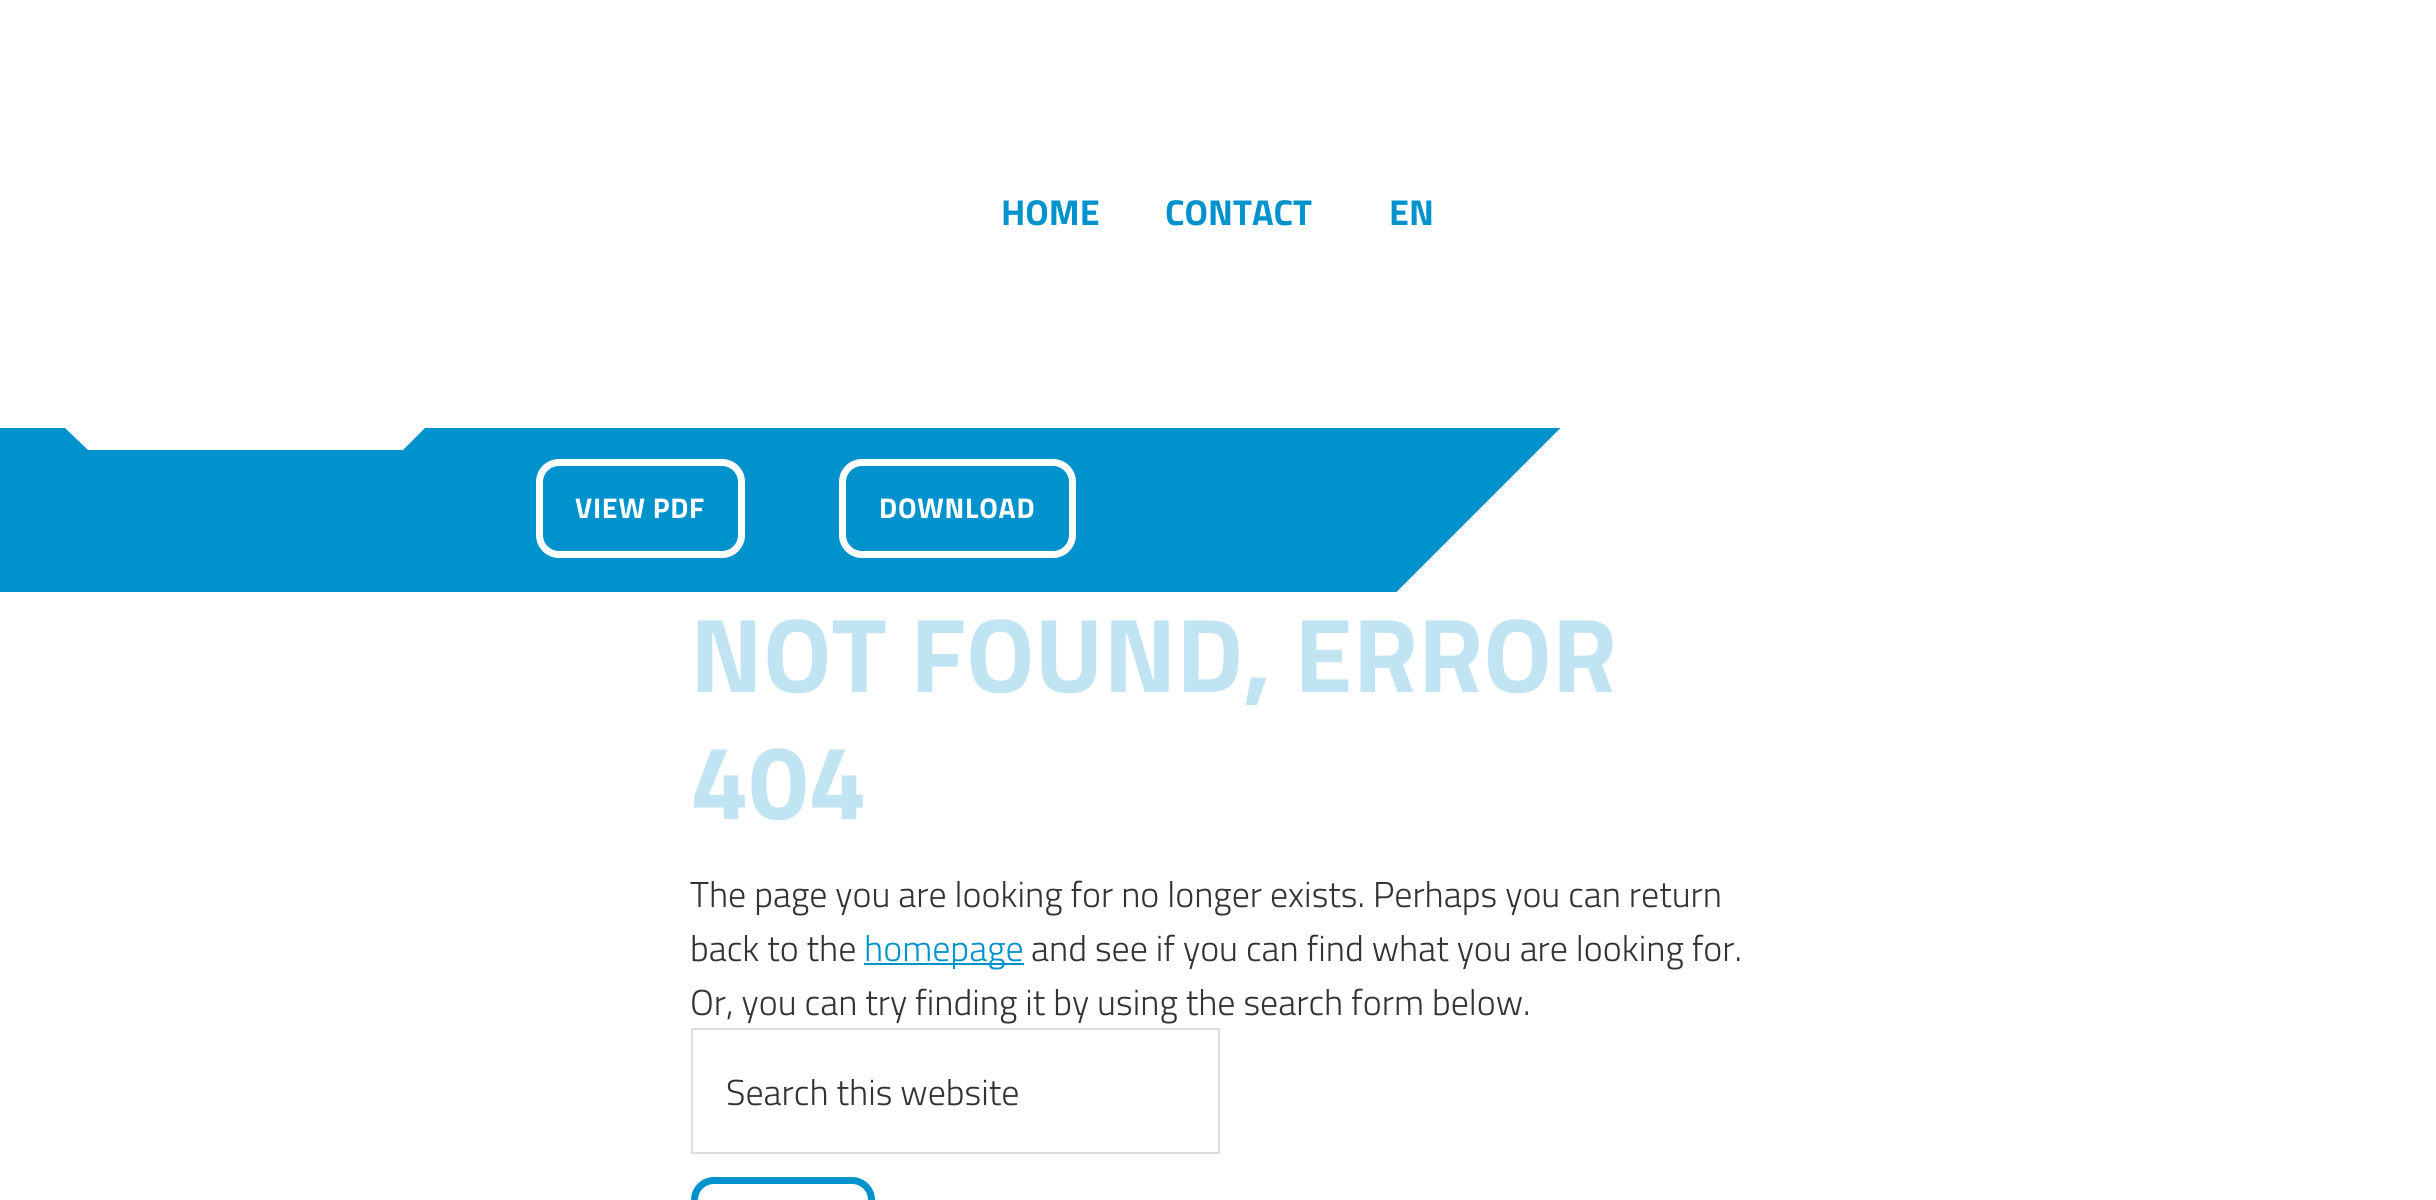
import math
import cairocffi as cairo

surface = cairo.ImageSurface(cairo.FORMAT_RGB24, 2436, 1200)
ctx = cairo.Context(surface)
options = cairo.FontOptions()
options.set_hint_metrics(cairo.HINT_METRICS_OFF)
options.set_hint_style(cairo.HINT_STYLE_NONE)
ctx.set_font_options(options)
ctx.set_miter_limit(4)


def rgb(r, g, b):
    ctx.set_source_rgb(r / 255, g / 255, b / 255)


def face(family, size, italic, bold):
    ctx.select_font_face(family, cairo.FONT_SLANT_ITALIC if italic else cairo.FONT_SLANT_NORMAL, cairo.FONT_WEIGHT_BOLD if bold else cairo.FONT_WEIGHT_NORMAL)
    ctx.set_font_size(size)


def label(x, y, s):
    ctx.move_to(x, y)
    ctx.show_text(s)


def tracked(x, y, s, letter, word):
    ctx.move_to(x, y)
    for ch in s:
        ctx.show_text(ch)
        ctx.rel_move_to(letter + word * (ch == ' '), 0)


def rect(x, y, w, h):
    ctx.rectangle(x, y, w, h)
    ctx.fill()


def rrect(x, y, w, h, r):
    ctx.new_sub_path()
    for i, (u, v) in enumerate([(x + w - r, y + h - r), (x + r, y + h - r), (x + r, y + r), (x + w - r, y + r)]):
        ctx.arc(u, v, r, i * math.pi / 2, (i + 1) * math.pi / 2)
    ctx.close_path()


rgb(255, 255, 255)
ctx.paint()
face('Titillium Web', 36, 0, 1)
rgb(0, 146, 204)
label(1001, 225, 'HOME')
label(1165, 225, 'CONTACT')
label(1389, 225, 'EN')
gradient = cairo.LinearGradient(1869, 1160, 568, -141)
gradient.add_color_stop_rgba(0.4, 1, 1, 1, 1)
gradient.add_color_stop_rgba(0.4, 0, 0.573, 0.8, 1)
ctx.set_source(gradient)
rect(0, 428, 1560, 164)
rgb(255, 255, 255)
ctx.new_path()
ctx.move_to(65, 428)
ctx.line_to(425, 428)
ctx.line_to(403, 450)
ctx.line_to(88, 450)
ctx.close_path()
ctx.fill()
rrect(539.5, 462.5, 202, 92, 19.5)
ctx.set_line_width(7)
ctx.stroke()
face('Titillium Web', 28.5, 0, 1)
tracked(575, 518, 'VIEW PDF', 0.75, 0)
rrect(842.5, 462.5, 230, 92, 19.5)
ctx.stroke()
tracked(879, 518, 'DOWNLOAD', 0.75, 0)
face('Titillium Web', 105.25, 0, 1)
rgb(192, 228, 242)
label(690, 692, 'NOT FOUND, ERROR')
label(690, 819, '404')
face('Titillium Web Light', 36, 0, 0)
rgb(51, 51, 51)
label(690, 907, 'The page you are looking for no longer exists. Perhaps you can return')
label(690, 961, 'back to the')
rgb(0, 146, 204)
rect(864, 963, 160, 2)
label(864, 961, 'homepage')
rgb(51, 51, 51)
label(1031, 961, 'and see if you can find what you are looking for.')
label(690, 1015, 'Or, you can try finding it by using the search form below.')
ctx.rectangle(692, 1029, 527, 124)
rgb(221, 221, 221)
ctx.set_line_width(2)
ctx.stroke()
rgb(51, 51, 51)
label(726, 1105, 'Search this website')
rrect(694.5, 1180.5, 177, 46, 19.5)
rgb(0, 146, 204)
ctx.set_line_width(7)
ctx.stroke()
surface.write_to_png('render.png')
